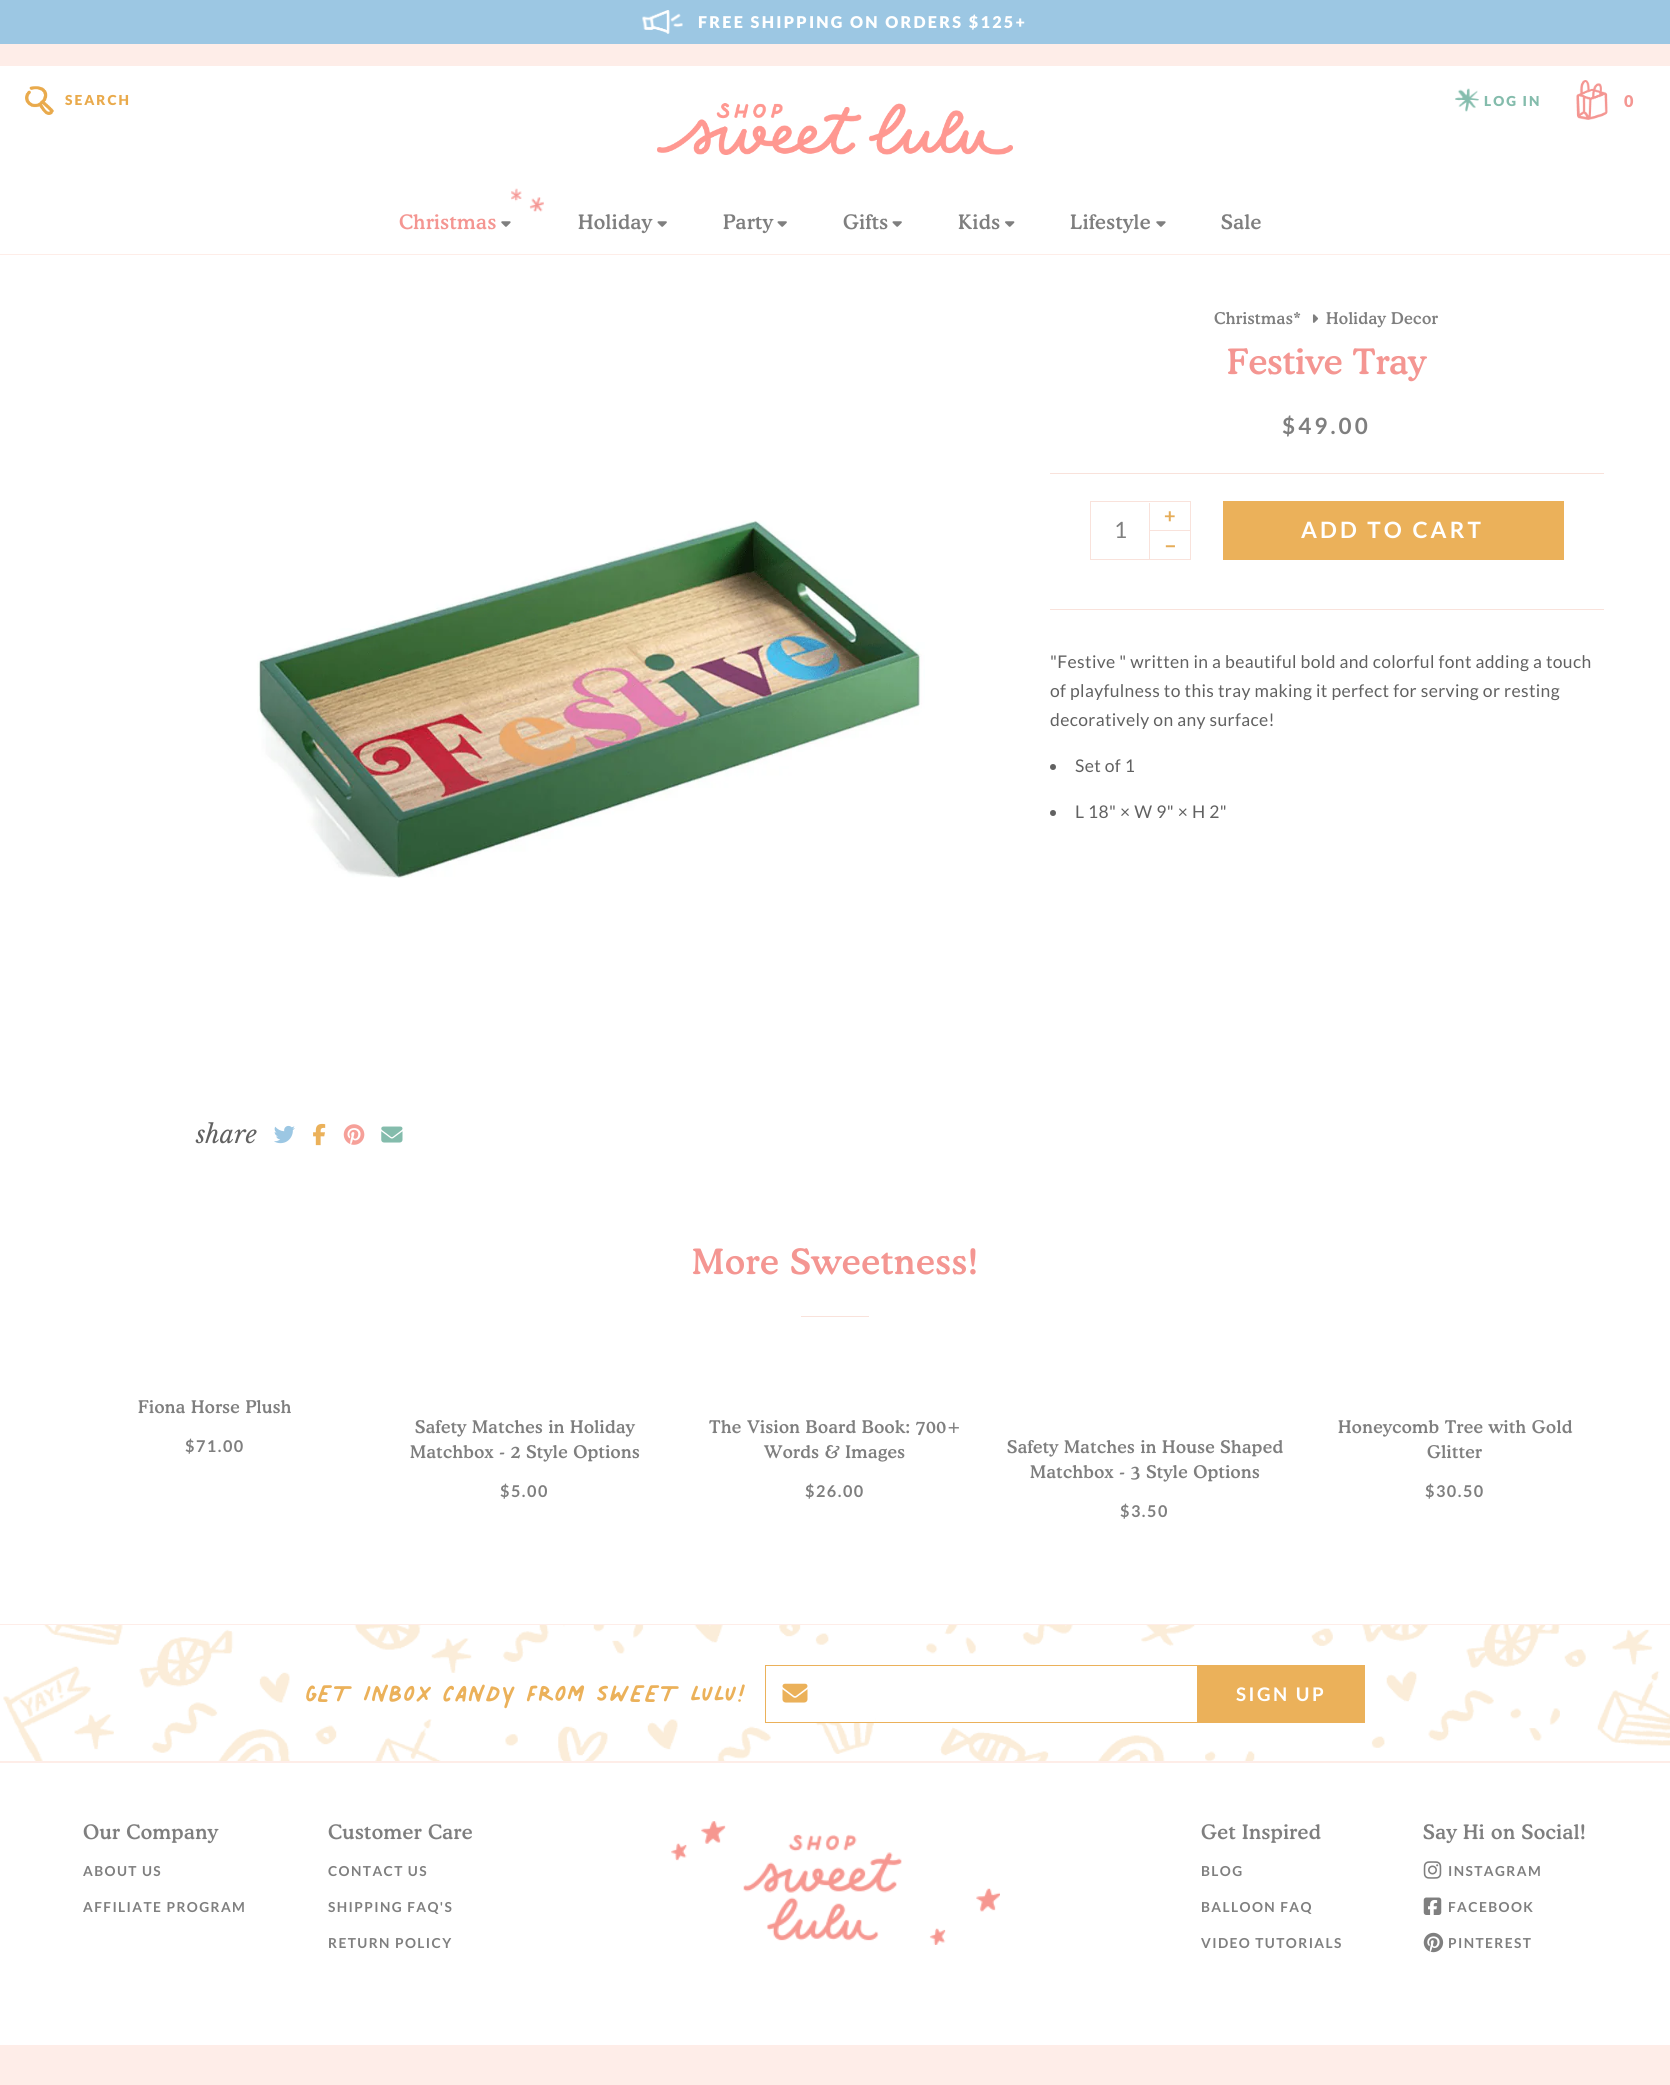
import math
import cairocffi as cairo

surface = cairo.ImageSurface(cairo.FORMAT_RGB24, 1670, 2085)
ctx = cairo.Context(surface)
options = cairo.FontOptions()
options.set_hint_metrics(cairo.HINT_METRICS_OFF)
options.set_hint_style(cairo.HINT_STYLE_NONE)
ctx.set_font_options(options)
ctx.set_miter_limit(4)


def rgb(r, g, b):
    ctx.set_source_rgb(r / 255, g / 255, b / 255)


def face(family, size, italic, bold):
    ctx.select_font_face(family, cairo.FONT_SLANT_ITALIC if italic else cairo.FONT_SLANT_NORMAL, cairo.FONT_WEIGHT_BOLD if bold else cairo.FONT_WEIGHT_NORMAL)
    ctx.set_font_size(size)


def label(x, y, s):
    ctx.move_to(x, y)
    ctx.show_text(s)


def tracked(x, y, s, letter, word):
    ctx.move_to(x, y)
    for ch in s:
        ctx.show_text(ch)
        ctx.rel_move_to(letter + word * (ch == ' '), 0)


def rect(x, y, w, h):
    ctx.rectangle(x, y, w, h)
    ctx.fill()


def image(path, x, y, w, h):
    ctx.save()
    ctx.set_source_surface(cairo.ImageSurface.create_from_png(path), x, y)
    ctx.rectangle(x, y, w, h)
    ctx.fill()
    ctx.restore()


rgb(254, 237, 232)
ctx.paint()
rgb(156, 199, 227)
rect(0, 0, 1670, 44)
image('image0.png', 642, 10, 41, 24)
face('Lato Black', 16.25, 0, 0)
rgb(255, 255, 255)
tracked(698, 28, 'FREE SHIPPING ON ORDERS $125+', 2.25, 0)
rect(0, 66, 1670, 188)
image('image1.png', 25, 86, 29, 29)
face('Lato Black', 13.75, 0, 0)
rgb(233, 170, 76)
tracked(65, 105, 'SEARCH', 2, 0)
image('image2.png', 1455, 88, 24, 24)
rgb(132, 188, 172)
tracked(1484, 106, 'LOG IN', 2, 0)
image('image3.png', 1576, 80, 32, 40)
face('Lato Black', 16.25, 0, 0)
rgb(244, 150, 146)
tracked(1624, 107, '0', 2, 0)
image('image4.png', 657, 103, 356, 52)
image('image5.png', 511, 188, 33, 24)
face('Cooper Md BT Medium', 20, 0, 0)
tracked(399, 229, 'Christmas', 0.4, 0)
image('image6.png', 501, 221, 10, 6)
rgb(127, 127, 127)
tracked(578, 229, 'Holiday', 0.4, 0)
image('image7.png', 657, 221, 10, 6)
tracked(723, 229, 'Party', 0.4, 0)
image('image7.png', 777, 221, 10, 6)
tracked(843, 229, 'Gifts', 0.4, 0)
image('image7.png', 892, 221, 10, 6)
tracked(958, 229, 'Kids', 0.4, 0)
image('image8.png', 1005, 221, 10, 6)
tracked(1070, 229, 'Lifestyle', 0.4, 0)
image('image6.png', 1156, 221, 10, 6)
tracked(1221, 229, 'Sale', 0.4, 0)
rgb(255, 255, 255)
rect(0, 255, 1670, 1369)
face('Cooper Md BT Medium', 16.25, 0, 0)
rgb(127, 127, 127)
tracked(1214, 324, 'Christmas*', 0.3, 0)
image('image9.png', 1312, 314, 7, 9)
tracked(1326, 324, 'Holiday Decor', 0.3, 0)
face('Cooper Md BT Medium', 35, 0, 0)
rgb(244, 150, 146)
label(1227, 374, 'Festive Tray')
face('Lato', 22.5, 0, 1)
rgb(127, 127, 127)
tracked(1282, 434, '$49.00', 3.1, 0)
rgb(249, 226, 219)
rect(1050, 473, 554, 1)
rect(1050, 609, 554, 1)
ctx.rectangle(1090.5, 501.5, 100, 58)
ctx.set_line_width(1)
ctx.stroke()
rect(1149, 503, 1, 56)
face('Lato', 22.5, 0, 0)
rgb(127, 127, 127)
label(1114, 538, '1')
face('Lato', 20, 0, 1)
rgb(229, 172, 88)
label(1164, 523, '+')
rgb(249, 226, 219)
rect(1150, 530, 40, 1)
face('Lato', 22.5, 0, 1)
rgb(229, 172, 88)
label(1164, 553, '–')
rgb(235, 177, 90)
rect(1223, 501, 341, 59)
rgb(255, 255, 255)
tracked(1301, 538, 'ADD TO CART', 3.1, 0)
face('Lato', 17.5, 0, 0)
rgb(97, 97, 97)
tracked(1050, 668, '"Festive " written in a beautiful bold and colorful font adding a touch', 0.35, 0)
tracked(1050, 697, 'of playfulness to this tray making it perfect for serving or resting', 0.35, 0)
tracked(1050, 726, 'decoratively on any surface!', 0.35, 0)
ctx.new_path()
ctx.arc(1053, 767, 3, 0, 2 * math.pi)
ctx.fill()
tracked(1075, 772, 'Set of 1', 0.35, 0)
ctx.new_path()
ctx.arc(1053, 813, 3, 0, 2 * math.pi)
ctx.fill()
tracked(1075, 818, 'L 18" × W 9" × H 2"', 0.35, 0)
image('image10.png', 257, 520, 668, 358)
face('Libre Baskerville', 25, 1, 0)
label(196, 1143, 'share')
image('image11.png', 274, 1125, 21, 19)
image('image12.png', 313, 1123, 13, 23)
image('image13.png', 343, 1124, 22, 21)
image('image14.png', 381, 1126, 22, 17)
face('Cooper Md BT Medium', 35, 0, 0)
rgb(244, 150, 146)
tracked(692, 1274, 'More Sweetness!', 0.75, 0)
rgb(249, 226, 219)
rect(801, 1316, 68, 1)
face('Cooper Md BT Medium', 17.5, 0, 0)
rgb(127, 127, 127)
tracked(138, 1413, 'Fiona Horse Plush', 0.35, 0)
face('Lato', 16.25, 0, 1)
tracked(185, 1452, '$71.00', 1.5, 0)
face('Cooper Md BT Medium', 17.5, 0, 0)
tracked(415, 1433, 'Safety Matches in Holiday', 0.35, 0)
tracked(410, 1458, 'Matchbox - 2 Style Options', 0.35, 0)
face('Lato', 16.25, 0, 1)
tracked(500, 1497, '$5.00', 1.5, 0)
face('Cooper Md BT Medium', 17.5, 0, 0)
tracked(709, 1433, 'The Vision Board Book: 700+', 0.35, 0)
tracked(764, 1458, 'Words & Images', 0.35, 0)
face('Lato', 16.25, 0, 1)
tracked(805, 1497, '$26.00', 1.5, 0)
face('Cooper Md BT Medium', 17.5, 0, 0)
tracked(1007, 1453, 'Safety Matches in House Shaped', 0.35, 0)
tracked(1030, 1478, 'Matchbox - 3 Style Options', 0.35, 0)
face('Lato', 16.25, 0, 1)
tracked(1120, 1517, '$3.50', 1.5, 0)
face('Cooper Md BT Medium', 17.5, 0, 0)
tracked(1338, 1433, 'Honeycomb Tree with Gold', 0.35, 0)
tracked(1427, 1458, 'Glitter', 0.35, 0)
face('Lato', 16.25, 0, 1)
tracked(1425, 1497, '$30.50', 1.5, 0)
image('image15.png', 0, 1625, 1670, 136)
face('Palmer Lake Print', 37.5, 0, 0)
rgb(235, 177, 90)
tracked(305, 1702, 'GET INBOX CANDY FROM SWEET LULU!', 0.75, 0)
rgb(255, 255, 255)
rect(815, 1718, 60, 4)
ctx.rectangle(765.5, 1665.5, 432, 57)
rgb(235, 177, 90)
ctx.stroke()
image('image16.png', 782, 1683, 26, 20)
rect(1198, 1665, 167, 58)
face('Lato', 18.75, 0, 1)
rgb(255, 255, 255)
tracked(1236, 1701, 'SIGN UP', 2.5, 0)
rect(0, 1763, 1670, 282)
face('Cooper Md BT Medium', 20, 0, 0)
rgb(127, 127, 127)
tracked(83, 1839, 'Our Company', 0.4, 0)
face('Lato', 13.75, 0, 1)
tracked(83, 1876, 'ABOUT US', 1.4, 0)
tracked(83, 1912, 'AFFILIATE PROGRAM', 1.4, 0)
face('Cooper Md BT Medium', 20, 0, 0)
tracked(328, 1839, 'Customer Care', 0.4, 0)
face('Lato', 13.75, 0, 1)
tracked(328, 1876, 'CONTACT US', 1.4, 0)
tracked(328, 1912, 'SHIPPING FAQ\'S', 1.4, 0)
tracked(328, 1948, 'RETURN POLICY', 1.4, 0)
image('image17.png', 671, 1821, 329, 124)
face('Cooper Md BT Medium', 20, 0, 0)
tracked(1201, 1839, 'Get Inspired', 0.4, 0)
face('Lato', 13.75, 0, 1)
tracked(1201, 1876, 'BLOG', 1.4, 0)
tracked(1201, 1912, 'BALLOON FAQ', 1.4, 0)
tracked(1201, 1948, 'VIDEO TUTORIALS', 1.4, 0)
face('Cooper Md BT Medium', 20, 0, 0)
tracked(1423, 1839, 'Say Hi on Social!', 0.4, 0)
image('image18.png', 1423, 1861, 19, 18)
face('Lato', 13.75, 0, 1)
tracked(1448, 1876, 'INSTAGRAM', 1.4, 0)
image('image19.png', 1423, 1897, 19, 18)
tracked(1448, 1912, 'FACEBOOK', 1.4, 0)
image('image20.png', 1423, 1932, 21, 21)
tracked(1448, 1948, 'PINTEREST', 1.4, 0)
surface.write_to_png('render.png')
